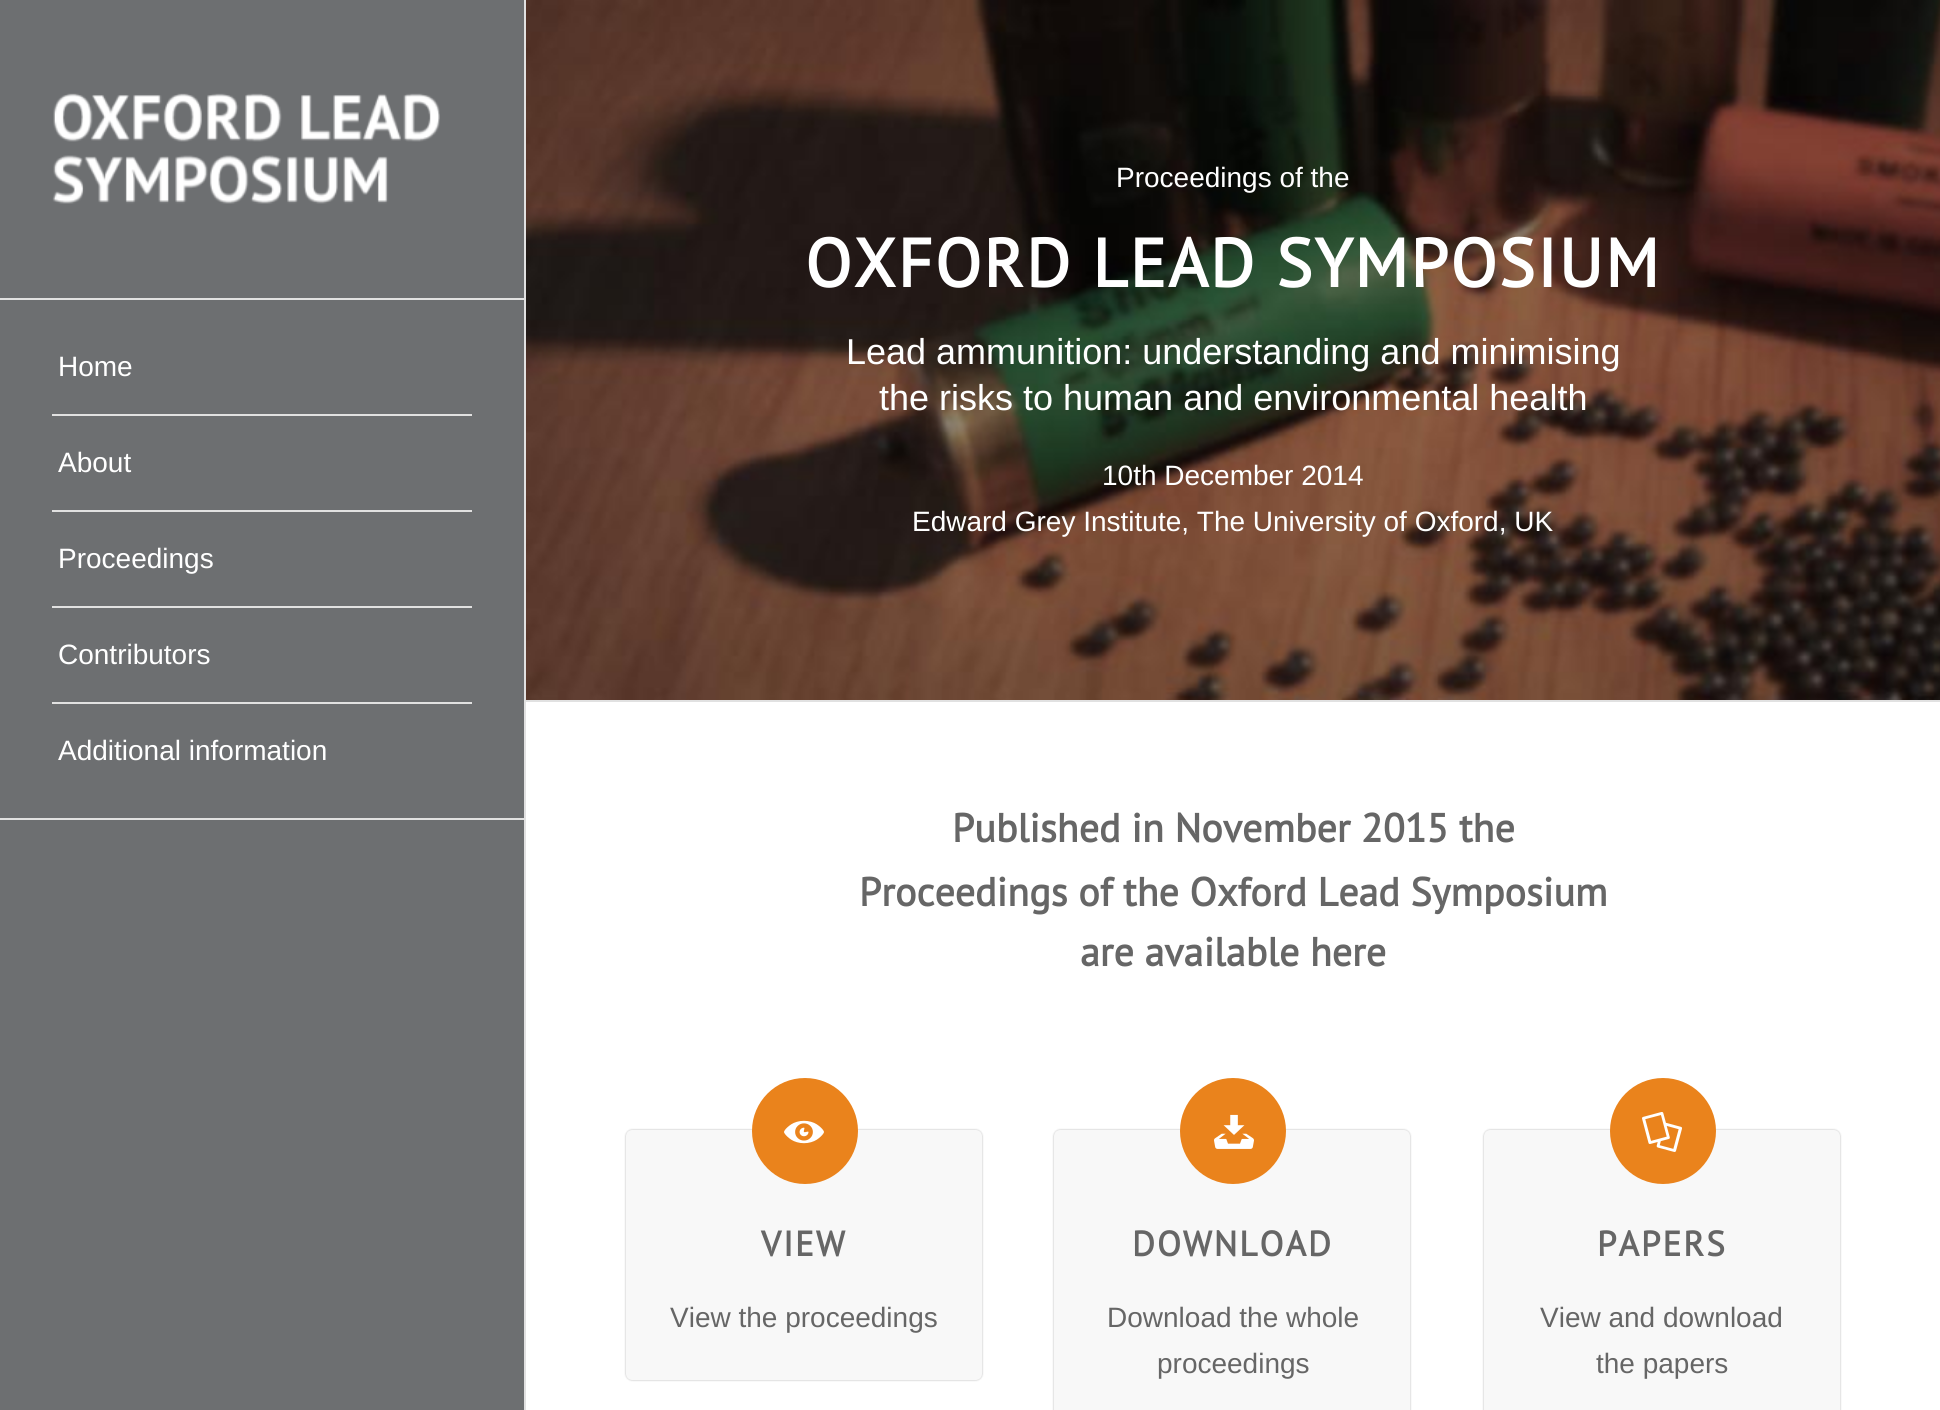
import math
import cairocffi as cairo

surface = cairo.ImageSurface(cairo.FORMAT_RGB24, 1940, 1410)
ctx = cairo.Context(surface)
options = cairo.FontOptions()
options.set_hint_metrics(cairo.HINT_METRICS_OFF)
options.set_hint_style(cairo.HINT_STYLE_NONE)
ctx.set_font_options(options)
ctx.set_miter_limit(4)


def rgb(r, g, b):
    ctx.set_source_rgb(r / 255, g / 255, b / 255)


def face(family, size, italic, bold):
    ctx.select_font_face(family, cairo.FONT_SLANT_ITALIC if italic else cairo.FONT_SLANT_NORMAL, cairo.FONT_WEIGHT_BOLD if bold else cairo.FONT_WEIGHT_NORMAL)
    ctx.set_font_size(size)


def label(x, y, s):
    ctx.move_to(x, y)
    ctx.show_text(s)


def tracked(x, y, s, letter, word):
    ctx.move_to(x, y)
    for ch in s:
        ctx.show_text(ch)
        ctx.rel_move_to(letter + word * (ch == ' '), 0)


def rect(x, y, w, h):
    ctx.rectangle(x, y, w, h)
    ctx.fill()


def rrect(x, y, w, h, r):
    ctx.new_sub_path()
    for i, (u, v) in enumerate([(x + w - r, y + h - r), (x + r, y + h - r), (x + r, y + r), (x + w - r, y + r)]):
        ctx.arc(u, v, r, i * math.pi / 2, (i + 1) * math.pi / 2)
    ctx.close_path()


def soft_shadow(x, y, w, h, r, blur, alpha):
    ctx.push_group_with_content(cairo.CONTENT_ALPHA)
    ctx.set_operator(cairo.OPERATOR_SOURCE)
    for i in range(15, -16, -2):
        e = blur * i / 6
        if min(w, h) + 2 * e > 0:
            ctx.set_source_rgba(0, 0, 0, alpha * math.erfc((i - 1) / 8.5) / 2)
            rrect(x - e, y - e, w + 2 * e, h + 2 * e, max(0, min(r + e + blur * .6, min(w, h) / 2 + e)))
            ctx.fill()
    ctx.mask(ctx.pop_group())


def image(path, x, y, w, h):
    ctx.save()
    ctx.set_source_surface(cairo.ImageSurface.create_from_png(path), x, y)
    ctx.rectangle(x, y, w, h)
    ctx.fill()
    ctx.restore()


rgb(225, 225, 225)
ctx.paint()
rgb(109, 111, 113)
rect(0, 0, 524, 1410)
rgb(225, 225, 225)
rect(0, 818, 524, 2)
rect(0, 298, 524, 2)
image('image0.png', 52, 93, 388, 111)
rect(52, 414, 420, 2)
face('Liberation Sans', 28, 0, 0)
rgb(255, 255, 255)
label(58, 376, 'Home')
rgb(225, 225, 225)
rect(52, 510, 420, 2)
rgb(255, 255, 255)
label(58, 472, 'About')
rgb(225, 225, 225)
rect(52, 606, 420, 2)
rgb(255, 255, 255)
label(58, 568, 'Proceedings')
rgb(225, 225, 225)
rect(52, 702, 420, 2)
rgb(255, 255, 255)
label(58, 664, 'Contributors')
label(58, 760, 'Additional information')
image('image1.png', 526, 0, 1414, 700)
label(1116, 187, 'Proceedings of the')
face('PT Sans', 68, 0, 1)
tracked(805, 287, 'OXFORD LEAD SYMPOSIUM', 2, 0)
face('Liberation Sans', 36, 0, 0)
label(846, 364, 'Lead ammunition: understanding and minimising')
label(879, 410, 'the risks to human and environmental health')
face('Liberation Sans', 28, 0, 0)
label(1102, 485, '10th December 2014')
label(912, 531, 'Edward Grey Institute, The University of Oxford, UK')
rect(526, 702, 1414, 708)
face('PT Sans', 40, 0, 1)
rgb(102, 102, 102)
label(952, 842, 'Published in November 2015 the')
label(859, 906, 'Proceedings of the Oxford Lead Symposium')
label(1080, 966, 'are available here')
rgb(0, 0, 0)
soft_shadow(626, 1130, 356, 250, 6, 1, 0.3)
rgb(248, 248, 248)
rrect(626, 1130, 356, 250, 6)
ctx.fill()
rgb(234, 131, 28)
ctx.arc(805, 1131, 53, 0, 2 * math.pi)
ctx.fill()
image('image2.png', 784, 1120, 40, 24)
face('PT Sans', 35, 0, 1)
rgb(102, 102, 102)
tracked(761, 1256, 'VIEW', 2, 0)
face('Liberation Sans', 28, 0, 0)
label(670, 1327, 'View the proceedings')
rgb(0, 0, 0)
soft_shadow(1054, 1130, 356, 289, 6, 1, 0.3)
rgb(248, 248, 248)
rrect(1054, 1130, 356, 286, 6)
ctx.fill()
rgb(234, 131, 28)
ctx.arc(1233, 1131, 53, 0, 2 * math.pi)
ctx.fill()
image('image3.png', 1214, 1114, 40, 35)
face('PT Sans', 35, 0, 1)
rgb(102, 102, 102)
tracked(1132, 1256, 'DOWNLOAD', 2, 0)
face('Liberation Sans', 28, 0, 0)
label(1107, 1327, 'Download the whole')
label(1157, 1373, 'proceedings')
rgb(0, 0, 0)
soft_shadow(1484, 1130, 356, 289, 6, 1, 0.3)
rgb(248, 248, 248)
rrect(1484, 1130, 356, 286, 6)
ctx.fill()
rgb(234, 131, 28)
ctx.arc(1663, 1131, 53, 0, 2 * math.pi)
ctx.fill()
image('image4.png', 1642, 1112, 40, 40)
face('PT Sans', 35, 0, 1)
rgb(102, 102, 102)
tracked(1597, 1256, 'PAPERS', 2, 0)
face('Liberation Sans', 28, 0, 0)
label(1540, 1327, 'View and download')
label(1596, 1373, 'the papers')
surface.write_to_png('render.png')
